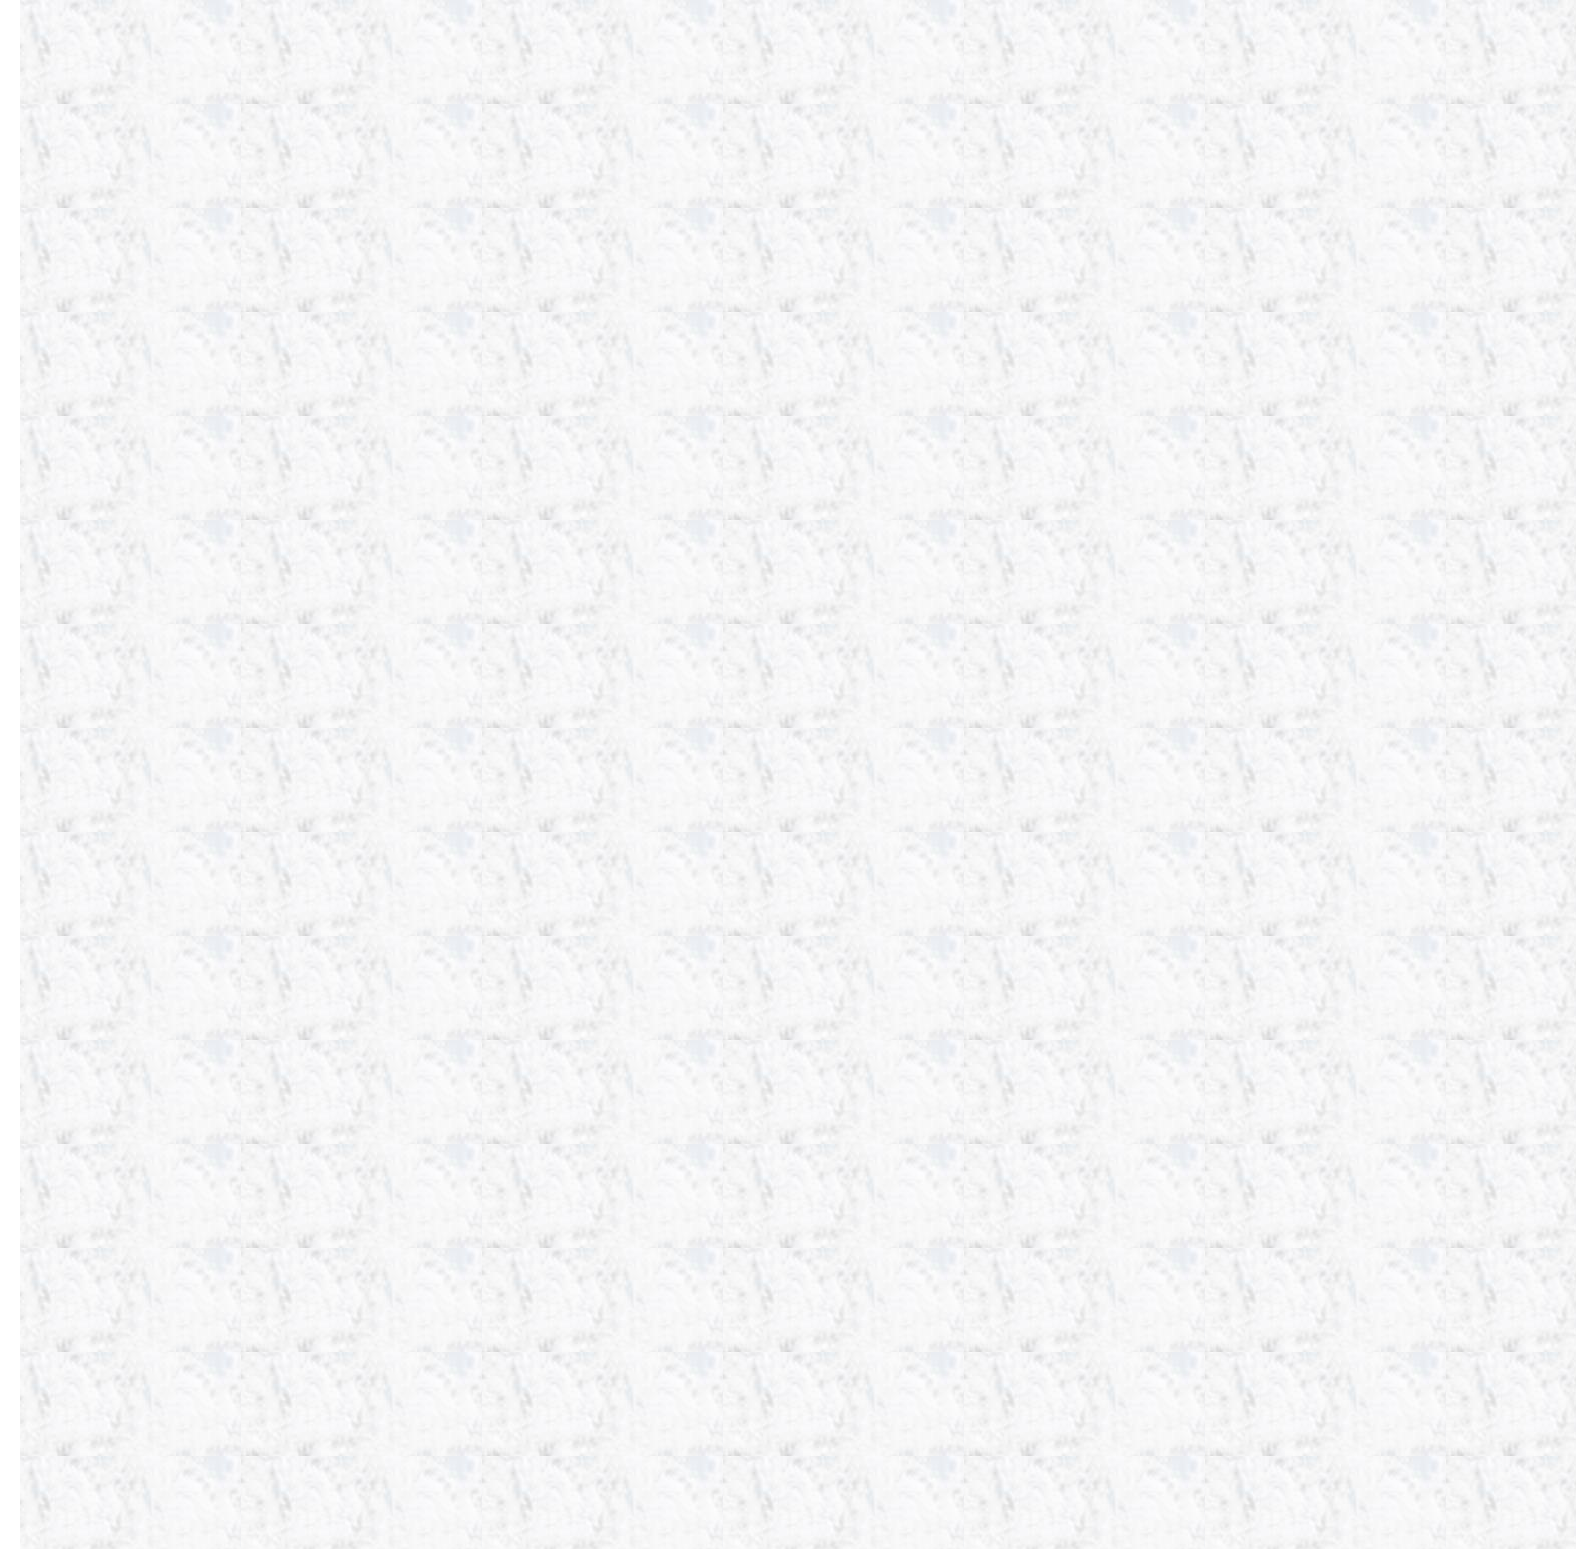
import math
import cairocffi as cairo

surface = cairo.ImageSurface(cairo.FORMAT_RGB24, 1576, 1549)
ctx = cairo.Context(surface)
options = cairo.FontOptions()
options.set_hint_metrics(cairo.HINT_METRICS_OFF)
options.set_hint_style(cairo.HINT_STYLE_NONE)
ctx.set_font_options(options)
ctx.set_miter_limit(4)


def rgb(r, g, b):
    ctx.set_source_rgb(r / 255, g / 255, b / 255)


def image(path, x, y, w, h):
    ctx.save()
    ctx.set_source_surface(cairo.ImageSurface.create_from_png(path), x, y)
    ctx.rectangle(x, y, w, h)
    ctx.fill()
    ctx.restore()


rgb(255, 255, 255)
ctx.paint()
image('image0.png', 20, 0, 1556, 1549)
surface.write_to_png('render.png')
